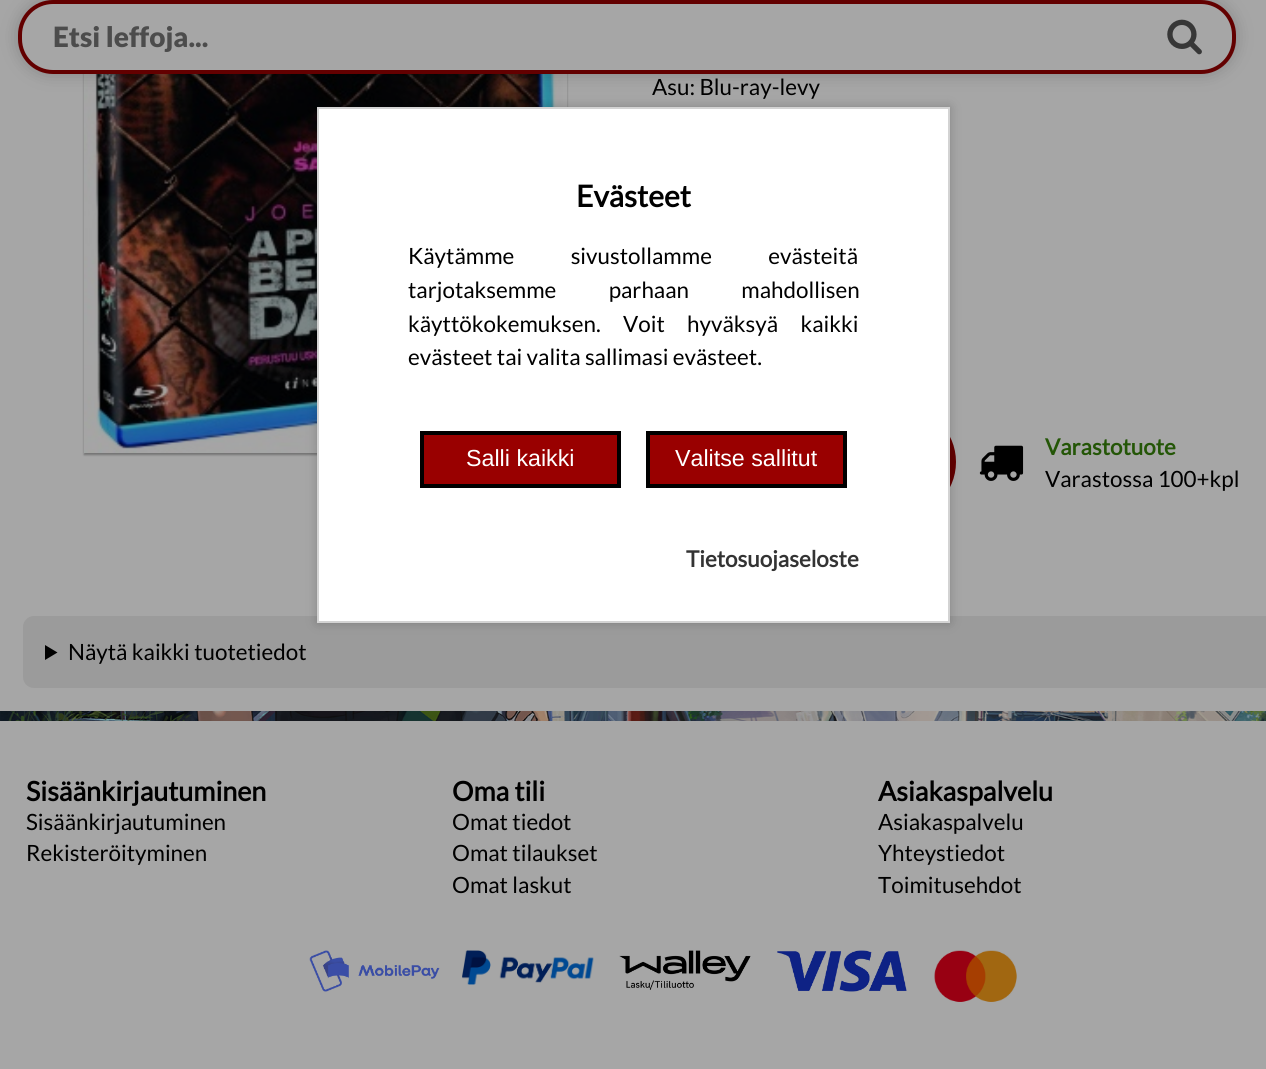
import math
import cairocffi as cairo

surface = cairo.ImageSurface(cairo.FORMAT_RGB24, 1266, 1069)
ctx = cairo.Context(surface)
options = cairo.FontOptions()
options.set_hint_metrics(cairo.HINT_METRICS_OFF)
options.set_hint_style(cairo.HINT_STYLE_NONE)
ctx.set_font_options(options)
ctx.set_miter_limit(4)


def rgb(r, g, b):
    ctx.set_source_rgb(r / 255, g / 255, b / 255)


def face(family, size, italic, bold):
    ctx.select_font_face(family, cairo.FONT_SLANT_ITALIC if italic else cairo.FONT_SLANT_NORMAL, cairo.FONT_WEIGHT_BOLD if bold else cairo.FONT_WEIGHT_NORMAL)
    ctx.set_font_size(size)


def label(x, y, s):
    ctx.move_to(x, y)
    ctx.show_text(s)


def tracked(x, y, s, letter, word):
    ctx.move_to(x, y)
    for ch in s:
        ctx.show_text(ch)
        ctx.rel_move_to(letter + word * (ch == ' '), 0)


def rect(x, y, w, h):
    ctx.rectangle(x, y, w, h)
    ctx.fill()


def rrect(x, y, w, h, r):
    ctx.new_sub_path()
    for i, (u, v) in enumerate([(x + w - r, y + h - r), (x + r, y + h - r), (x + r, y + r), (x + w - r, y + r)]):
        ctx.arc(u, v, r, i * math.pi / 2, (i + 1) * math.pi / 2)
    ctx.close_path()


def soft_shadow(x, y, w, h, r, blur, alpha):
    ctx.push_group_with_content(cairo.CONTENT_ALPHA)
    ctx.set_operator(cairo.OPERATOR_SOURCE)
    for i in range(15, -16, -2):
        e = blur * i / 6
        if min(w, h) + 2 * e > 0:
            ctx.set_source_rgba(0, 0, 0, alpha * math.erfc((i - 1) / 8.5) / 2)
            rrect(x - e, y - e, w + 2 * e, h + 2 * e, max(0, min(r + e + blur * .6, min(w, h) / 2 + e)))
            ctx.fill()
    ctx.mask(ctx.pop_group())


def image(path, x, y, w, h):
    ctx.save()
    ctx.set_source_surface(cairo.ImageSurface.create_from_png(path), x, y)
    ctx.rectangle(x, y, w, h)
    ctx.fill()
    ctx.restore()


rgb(255, 255, 255)
ctx.paint()
image('image0.png', 0, 711, 1266, 10)
rgb(166, 166, 166)
rect(0, 0, 1266, 711)
ctx.save()
ctx.set_fill_rule(cairo.FILL_RULE_EVEN_ODD)
ctx.new_path()
ctx.move_to(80, 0)
ctx.line_to(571, 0)
ctx.line_to(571, 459)
ctx.line_to(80, 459)
ctx.close_path()
ctx.move_to(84, -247)
ctx.line_to(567, -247)
ctx.line_to(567, 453)
ctx.line_to(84, 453)
ctx.close_path()
ctx.clip()
rgb(0, 0, 0)
soft_shadow(84, -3, 483, 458, 0, 1, 0.3)
ctx.restore()
image('image2.png', 84, 74, 479, 379)
rgb(0, 0, 0)
soft_shadow(18, 0, 1218, 74, 35, 8.5, 0.2)
rgb(166, 166, 166)
rrect(20, 2, 1214, 70, 33)
ctx.fill_preserve()
rgb(99, 0, 0)
ctx.set_line_width(4)
ctx.stroke()
face('Lato Black', 28, 0, 0)
rgb(76, 76, 76)
label(53, 47, 'Etsi leffoja...')
image('image1.png', 1167, 19, 35, 36)
face('Lato', 22.4, 0, 0)
rgb(0, 0, 0)
label(652, 95, 'Asu: Blu-ray-levy')
rgb(99, 0, 0)
rrect(653, 406, 303, 112, 56)
ctx.fill()
image('image3.png', 979, 445, 45, 36)
face('Lato', 22.4, 0, 1)
rgb(36, 86, 7)
label(1045, 455, 'Varastotuote')
face('Lato', 22.4, 0, 0)
rgb(0, 0, 0)
label(1045, 487, 'Varastossa 100+kpl')
rgb(155, 155, 155)
rrect(23, 616, 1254, 72, 11)
ctx.fill()
rgb(0, 0, 0)
ctx.new_path()
ctx.move_to(45, 645)
ctx.line_to(57.5, 652.5)
ctx.line_to(45, 660)
ctx.close_path()
ctx.fill()
label(68, 660, 'Näytä kaikki tuotetiedot')
rgb(166, 166, 166)
rect(0, 721, 1266, 348)
face('Lato', 26.9, 0, 1)
rgb(0, 0, 0)
label(26, 801, 'Sisäänkirjautuminen')
face('Lato', 22.4, 0, 0)
label(26, 830, 'Sisäänkirjautuminen')
label(26, 861, 'Rekisteröityminen')
face('Lato', 26.9, 0, 1)
label(452, 801, 'Oma tili')
face('Lato', 22.4, 0, 0)
label(452, 830, 'Omat tiedot')
label(452, 861, 'Omat tilaukset')
label(452, 893, 'Omat laskut')
face('Lato', 26.9, 0, 1)
label(878, 801, 'Asiakaspalvelu')
face('Lato', 22.4, 0, 0)
label(878, 830, 'Asiakaspalvelu')
label(878, 861, 'Yhteystiedot')
label(878, 893, 'Toimitusehdot')
image('image4.png', 309, 950, 131, 42)
image('image5.png', 462, 950, 132, 35)
image('image6.png', 619, 950, 132, 40)
image('image7.png', 777, 950, 130, 42)
image('image8.png', 934, 950, 83, 52)
rgb(0, 0, 0)
soft_shadow(317, 107, 633, 516, 0, 5.5, 0.2)
rgb(255, 255, 255)
ctx.rectangle(318, 108, 631, 514)
ctx.fill_preserve()
rgb(211, 211, 211)
ctx.set_line_width(2)
ctx.stroke()
face('Lato', 30, 0, 1)
rgb(0, 0, 0)
label(576, 207, 'Evästeet')
face('Lato', 22.4, 0, 0)
tracked(408, 264, 'Käytämme sivustollamme evästeitä', 0, 52)
tracked(408, 298, 'tarjotaksemme parhaan mahdollisen', 0, 48)
tracked(408, 332, 'käyttökokemuksen. Voit hyväksyä kaikki', 0, 18)
label(408, 365, 'evästeet tai valita sallimasi evästeet.')
rgb(153, 0, 0)
ctx.rectangle(422, 433, 197, 53)
ctx.fill_preserve()
rgb(0, 0, 0)
ctx.set_line_width(4)
ctx.stroke()
face('Liberation Sans', 23.25, 0, 0)
rgb(255, 255, 255)
label(466, 466, 'Salli kaikki')
rgb(153, 0, 0)
ctx.rectangle(648, 433, 197, 53)
ctx.fill_preserve()
rgb(0, 0, 0)
ctx.stroke()
rgb(255, 255, 255)
label(675, 466, 'Valitse sallitut')
face('Lato', 22.4, 0, 1)
rgb(51, 51, 51)
label(686, 567, 'Tietosuojaseloste')
surface.write_to_png('render.png')
